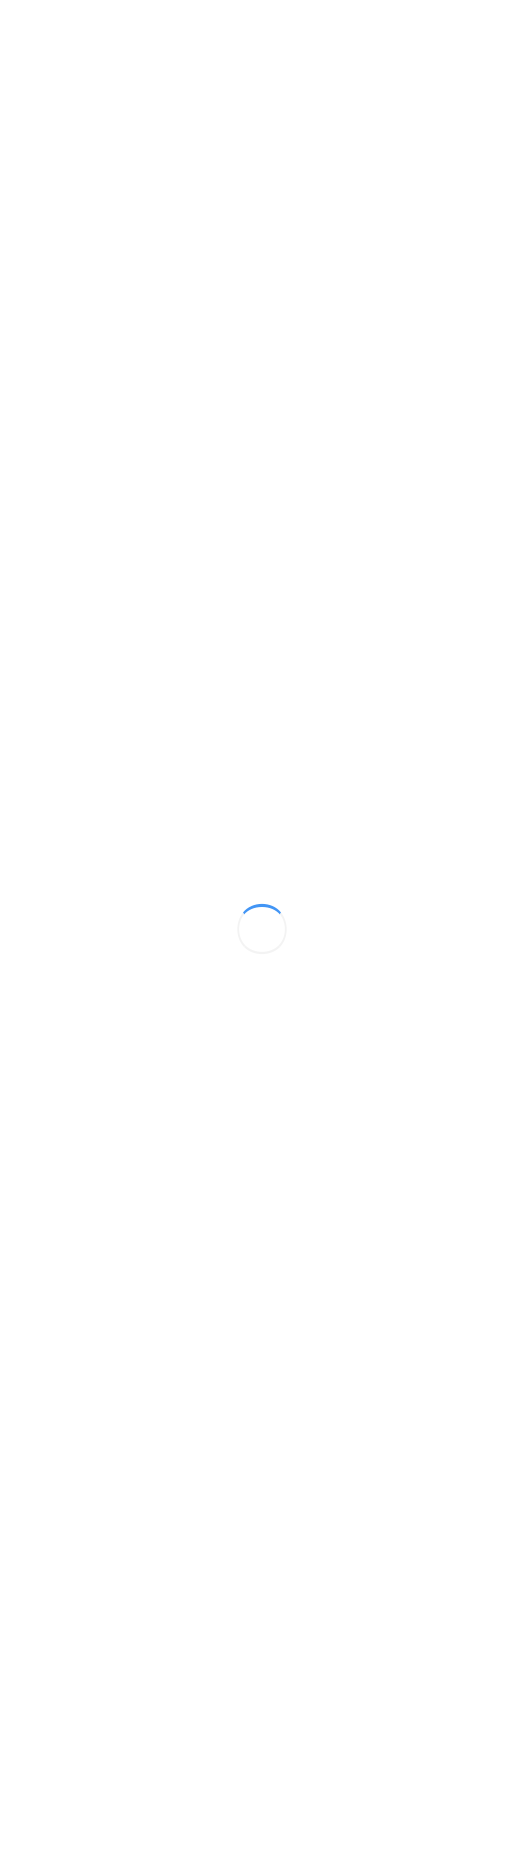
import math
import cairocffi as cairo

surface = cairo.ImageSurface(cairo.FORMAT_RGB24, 523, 1858)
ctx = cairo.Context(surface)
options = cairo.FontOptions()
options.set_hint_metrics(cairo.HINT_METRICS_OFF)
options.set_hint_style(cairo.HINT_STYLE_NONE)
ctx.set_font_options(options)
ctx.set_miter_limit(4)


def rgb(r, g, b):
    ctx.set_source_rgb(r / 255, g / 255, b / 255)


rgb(255, 255, 255)
ctx.paint()
rgb(66, 149, 245)
ctx.new_path()
ctx.move_to(262, 907)
ctx.curve_to(254, 907, 248, 910, 244, 914.5)
ctx.line_to(243, 912.5)
ctx.curve_to(252, 901, 272, 901, 281, 912.5)
ctx.line_to(280, 914.5)
ctx.curve_to(276, 910, 270, 907, 262, 907)
ctx.close_path()
ctx.fill()
rgb(243, 243, 243)
ctx.new_path()
ctx.move_to(281, 912.5)
ctx.curve_to(289, 922.5, 288.5, 938, 280, 947)
ctx.line_to(278.5, 945.5)
ctx.curve_to(286.5, 937.5, 287, 923.5, 280, 914.5)
ctx.close_path()
ctx.fill()
ctx.new_path()
ctx.move_to(280, 947)
ctx.curve_to(270.5, 956.5, 253.5, 956.5, 244, 947)
ctx.line_to(245.5, 945.5)
ctx.curve_to(254, 954, 270, 954, 278.5, 945.5)
ctx.close_path()
ctx.fill()
ctx.new_path()
ctx.move_to(243, 912.5)
ctx.curve_to(235, 922.5, 235.5, 938, 244, 947)
ctx.line_to(245.5, 945.5)
ctx.curve_to(237.5, 937.5, 237, 923.5, 244, 914.5)
ctx.close_path()
ctx.fill()
surface.write_to_png('render.png')
